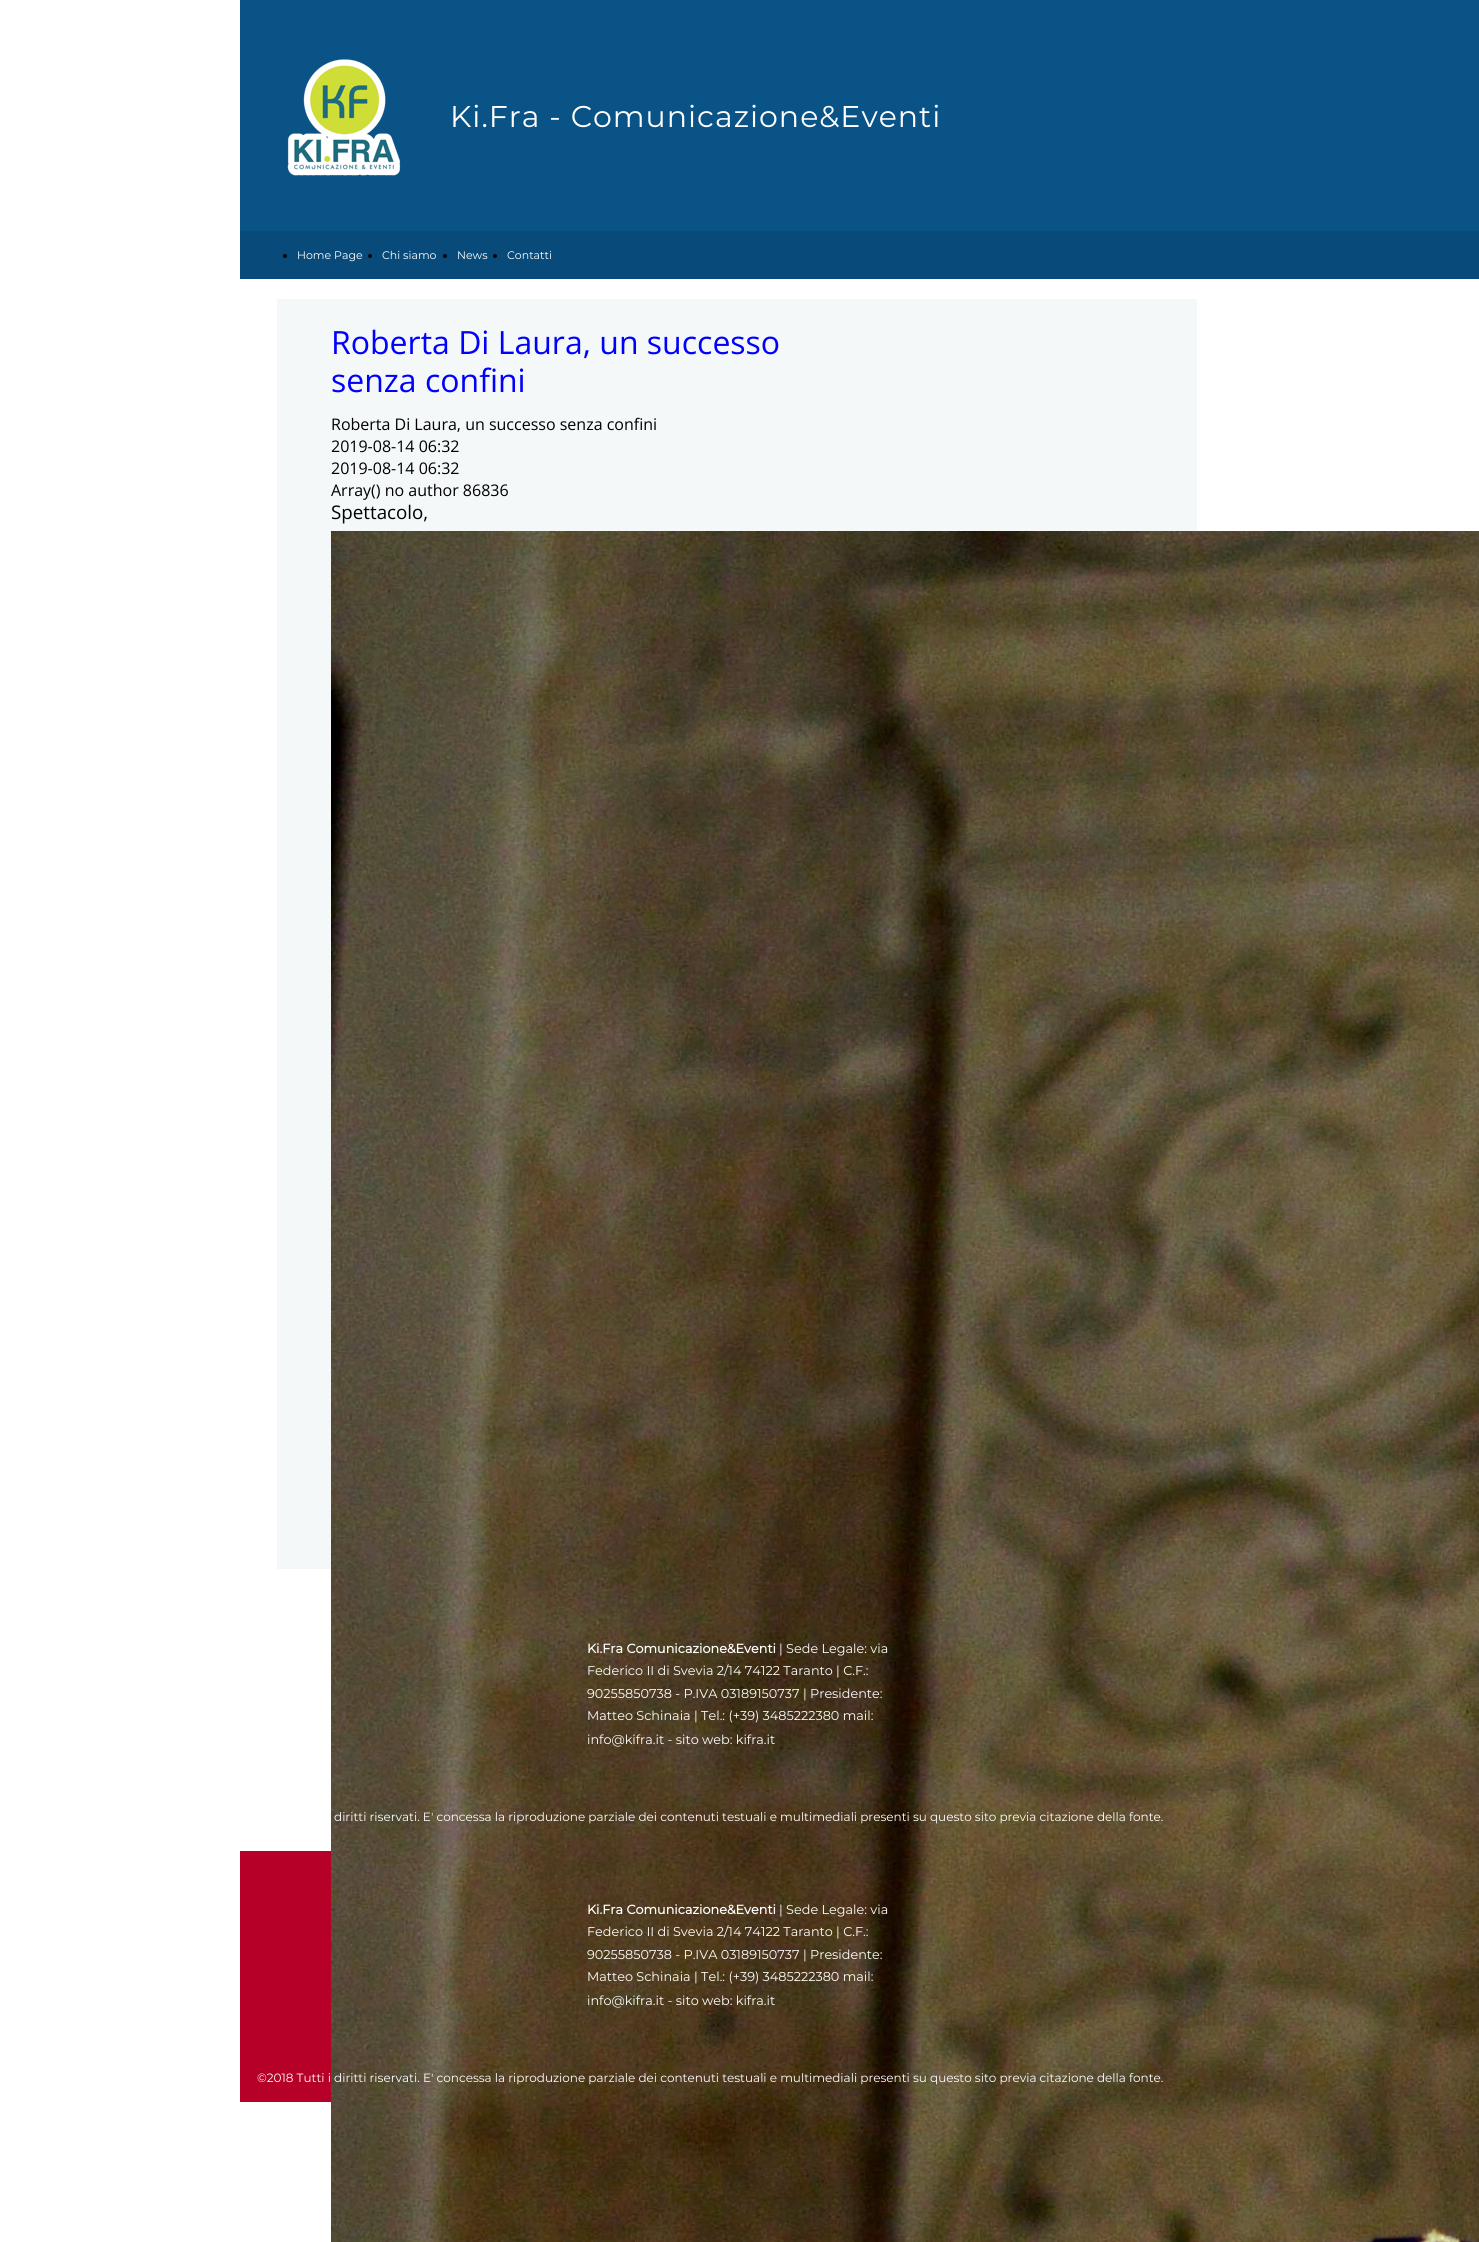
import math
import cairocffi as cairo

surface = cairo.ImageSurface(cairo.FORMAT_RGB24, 1479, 2242)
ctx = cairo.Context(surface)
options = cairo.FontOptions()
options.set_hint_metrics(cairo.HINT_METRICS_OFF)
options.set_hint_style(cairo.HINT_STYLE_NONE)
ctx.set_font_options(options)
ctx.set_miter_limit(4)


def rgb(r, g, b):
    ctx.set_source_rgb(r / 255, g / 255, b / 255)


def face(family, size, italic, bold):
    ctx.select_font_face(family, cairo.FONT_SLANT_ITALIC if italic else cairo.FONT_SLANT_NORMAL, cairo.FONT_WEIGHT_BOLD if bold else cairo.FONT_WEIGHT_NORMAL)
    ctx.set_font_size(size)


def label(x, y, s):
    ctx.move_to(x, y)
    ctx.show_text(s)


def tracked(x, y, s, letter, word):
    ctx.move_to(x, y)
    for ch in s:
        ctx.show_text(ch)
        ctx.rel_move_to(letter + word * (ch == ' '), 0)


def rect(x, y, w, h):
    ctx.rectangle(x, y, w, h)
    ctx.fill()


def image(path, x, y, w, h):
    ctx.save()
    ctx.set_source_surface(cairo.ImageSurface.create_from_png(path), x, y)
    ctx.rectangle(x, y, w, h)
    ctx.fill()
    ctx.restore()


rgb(255, 255, 255)
ctx.paint()
rgb(9, 83, 135)
rect(240, 0, 1239, 231)
image('image0.png', 287, 59, 114, 117)
face('Montserrat', 30, 0, 0)
rgb(255, 255, 255)
tracked(450, 127, 'Ki.Fra - Comunicazione&Eventi', 1, 0)
rgb(8, 74, 121)
rect(240, 231, 1239, 48)
rgb(0, 0, 0)
ctx.new_path()
ctx.arc(285, 256, 2, 0, 2 * math.pi)
ctx.fill()
face('Montserrat', 11, 0, 0)
rgb(255, 255, 255)
label(297, 259, 'Home Page')
rgb(0, 0, 0)
ctx.new_path()
ctx.arc(370, 256, 2, 0, 2 * math.pi)
ctx.fill()
rgb(255, 255, 255)
label(382, 259, 'Chi siamo')
rgb(0, 0, 0)
ctx.new_path()
ctx.arc(445, 256, 2, 0, 2 * math.pi)
ctx.fill()
rgb(255, 255, 255)
label(457, 259, 'News')
rgb(0, 0, 0)
ctx.new_path()
ctx.arc(495, 256, 2, 0, 2 * math.pi)
ctx.fill()
rgb(255, 255, 255)
label(507, 259, 'Contatti')
rgb(244, 248, 249)
rect(277, 299, 920, 1270)
face('Open Sans', 32, 0, 0)
rgb(0, 0, 255)
label(331, 354, 'Roberta Di Laura, un successo')
label(331, 392, 'senza confini')
face('Open Sans', 16, 0, 0)
rgb(0, 0, 0)
label(331, 430, 'Roberta Di Laura, un successo senza confini')
label(331, 452, '2019-08-14 06:32')
label(331, 474, '2019-08-14 06:32')
label(331, 496, 'Array() no author 86836')
face('Open Sans', 18.75, 0, 0)
label(331, 519, 'Spettacolo,')
image('image1.png', 331, 531, 1148, 1711)
face('Montserrat', 12.8, 0, 1)
rgb(255, 255, 255)
label(587, 1653, 'Ki.Fra Comunicazione&Eventi')
face('Montserrat', 12.8, 0, 0)
label(779, 1653, '| Sede Legale: via')
label(587, 1675, 'Federico II di Svevia 2/14 74122 Taranto | C.F.:')
label(587, 1698, '90255850738 - P.IVA 03189150737 | Presidente:')
label(587, 1720, 'Matteo Schinaia | Tel.: (+39) 3485222380 mail:')
label(587, 1744, 'info@kifra.it - sito web: kifra.it')
face('Montserrat', 12, 0, 0)
label(334, 1821, 'diritti riservati. E\' concessa la riproduzione parziale dei contenuti testuali e multimediali presenti su questo sito previa citazione della fonte.')
rgb(183, 0, 39)
rect(240, 1851, 91, 251)
face('Montserrat', 12.8, 0, 1)
rgb(255, 255, 255)
label(587, 1914, 'Ki.Fra Comunicazione&Eventi')
face('Montserrat', 12.8, 0, 0)
label(779, 1914, '| Sede Legale: via')
label(587, 1936, 'Federico II di Svevia 2/14 74122 Taranto | C.F.:')
label(587, 1959, '90255850738 - P.IVA 03189150737 | Presidente:')
label(587, 1981, 'Matteo Schinaia | Tel.: (+39) 3485222380 mail:')
label(587, 2005, 'info@kifra.it - sito web: kifra.it')
face('Montserrat', 12, 0, 0)
label(257, 2082, '©2018 Tutti i diritti riservati. E\' concessa la riproduzione parziale dei contenuti testuali e multimediali presenti su questo sito previa citazione della fonte.')
surface.write_to_png('render.png')
